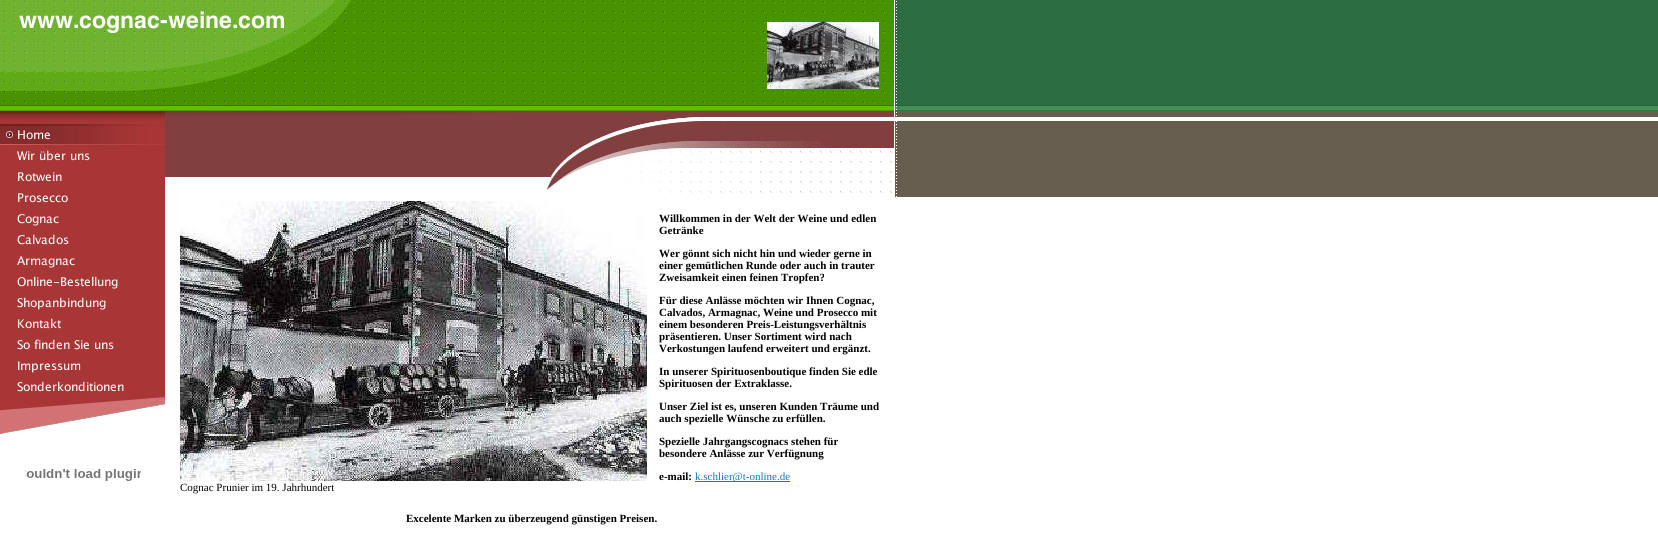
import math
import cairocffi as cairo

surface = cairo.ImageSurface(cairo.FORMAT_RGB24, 1658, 547)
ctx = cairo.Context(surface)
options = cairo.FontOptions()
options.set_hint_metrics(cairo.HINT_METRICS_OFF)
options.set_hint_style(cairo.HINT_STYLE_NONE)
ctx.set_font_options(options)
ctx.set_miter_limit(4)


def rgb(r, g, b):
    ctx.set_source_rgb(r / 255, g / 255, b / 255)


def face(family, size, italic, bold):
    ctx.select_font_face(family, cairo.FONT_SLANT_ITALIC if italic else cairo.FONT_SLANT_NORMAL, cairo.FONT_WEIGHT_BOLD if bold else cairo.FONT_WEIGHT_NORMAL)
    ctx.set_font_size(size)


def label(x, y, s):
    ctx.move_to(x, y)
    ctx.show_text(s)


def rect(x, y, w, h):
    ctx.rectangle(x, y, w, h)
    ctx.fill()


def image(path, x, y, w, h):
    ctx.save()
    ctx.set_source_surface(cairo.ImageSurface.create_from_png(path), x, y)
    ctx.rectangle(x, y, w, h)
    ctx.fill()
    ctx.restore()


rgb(255, 255, 255)
ctx.paint()
image('image0.png', 898, 0, 760, 197)
image('image1.png', 897, 0, 1, 197)
image('image2.png', 0, 0, 354, 111)
image('image3.png', 354, 0, 540, 111)
image('image4.png', 767, 22, 112, 67)
image('image5.png', 895, 0, 2, 197)
image('image6.png', 0, 111, 165, 13)
image('image7.png', 0, 124, 165, 21)
image('image8.png', 0, 145, 165, 21)
image('image9.png', 0, 166, 165, 21)
image('image10.png', 0, 187, 165, 21)
image('image11.png', 0, 208, 165, 21)
image('image12.png', 0, 229, 165, 21)
image('image13.png', 0, 250, 165, 21)
image('image14.png', 0, 271, 165, 21)
image('image15.png', 0, 292, 165, 21)
image('image16.png', 0, 313, 165, 21)
image('image17.png', 0, 334, 165, 21)
image('image18.png', 0, 355, 165, 21)
image('image19.png', 0, 376, 165, 21)
image('image20.png', 0, 397, 165, 37)
image('image21.png', 25, 469, 116, 12)
image('image22.png', 165, 111, 236, 66)
image('image23.png', 401, 111, 493, 82)
face('Liberation Serif', 11, 0, 1)
rgb(0, 0, 0)
label(659, 222, 'Willkommen in der Welt der Weine und edlen')
label(659, 234, 'Getränke')
label(659, 257, 'Wer gönnt sich nicht hin und wieder gerne in')
label(659, 269, 'einer gemütlichen Runde oder auch in trauter')
label(659, 281, 'Zweisamkeit einen feinen Tropfen?')
label(659, 304, 'Für diese Anlässe möchten wir Ihnen Cognac,')
label(659, 316, 'Calvados, Armagnac, Weine und Prosecco mit')
label(659, 328, 'einem besonderen Preis-Leistungsverhältnis')
label(659, 340, 'präsentieren. Unser Sortiment wird nach')
label(659, 352, 'Verkostungen laufend erweitert und ergänzt.')
label(659, 375, 'In unserer Spirituosenboutique finden Sie edle')
label(659, 387, 'Spirituosen der Extraklasse.')
label(659, 410, 'Unser Ziel ist es, unseren Kunden Träume und')
label(659, 422, 'auch spezielle Wünsche zu erfüllen.')
label(659, 445, 'Spezielle Jahrgangscognacs stehen für')
label(659, 457, 'besondere Anlässe zur Verfügnung')
label(659, 480, 'e-mail:')
rgb(0, 126, 182)
rect(695, 481, 95, 1)
face('Liberation Serif', 11, 0, 0)
label(695, 480, 'k.schlier@t-online.de')
image('image24.png', 180, 201, 467, 280)
rgb(0, 0, 0)
label(180, 491, 'Cognac Prunier im 19. Jahrhundert')
face('Liberation Serif', 11, 0, 1)
label(406, 522, 'Excelente Marken zu überzeugend günstigen Preisen.')
surface.write_to_png('render.png')
